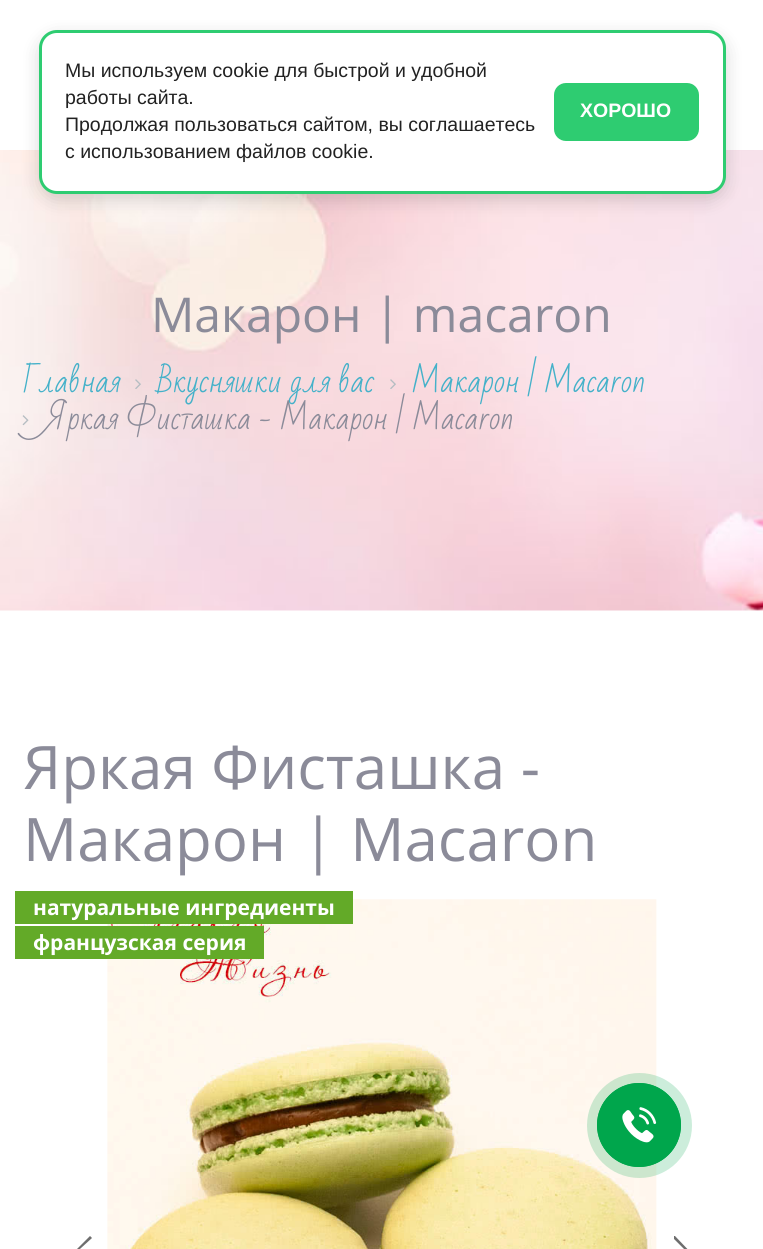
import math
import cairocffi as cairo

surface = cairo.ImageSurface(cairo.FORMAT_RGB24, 763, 1249)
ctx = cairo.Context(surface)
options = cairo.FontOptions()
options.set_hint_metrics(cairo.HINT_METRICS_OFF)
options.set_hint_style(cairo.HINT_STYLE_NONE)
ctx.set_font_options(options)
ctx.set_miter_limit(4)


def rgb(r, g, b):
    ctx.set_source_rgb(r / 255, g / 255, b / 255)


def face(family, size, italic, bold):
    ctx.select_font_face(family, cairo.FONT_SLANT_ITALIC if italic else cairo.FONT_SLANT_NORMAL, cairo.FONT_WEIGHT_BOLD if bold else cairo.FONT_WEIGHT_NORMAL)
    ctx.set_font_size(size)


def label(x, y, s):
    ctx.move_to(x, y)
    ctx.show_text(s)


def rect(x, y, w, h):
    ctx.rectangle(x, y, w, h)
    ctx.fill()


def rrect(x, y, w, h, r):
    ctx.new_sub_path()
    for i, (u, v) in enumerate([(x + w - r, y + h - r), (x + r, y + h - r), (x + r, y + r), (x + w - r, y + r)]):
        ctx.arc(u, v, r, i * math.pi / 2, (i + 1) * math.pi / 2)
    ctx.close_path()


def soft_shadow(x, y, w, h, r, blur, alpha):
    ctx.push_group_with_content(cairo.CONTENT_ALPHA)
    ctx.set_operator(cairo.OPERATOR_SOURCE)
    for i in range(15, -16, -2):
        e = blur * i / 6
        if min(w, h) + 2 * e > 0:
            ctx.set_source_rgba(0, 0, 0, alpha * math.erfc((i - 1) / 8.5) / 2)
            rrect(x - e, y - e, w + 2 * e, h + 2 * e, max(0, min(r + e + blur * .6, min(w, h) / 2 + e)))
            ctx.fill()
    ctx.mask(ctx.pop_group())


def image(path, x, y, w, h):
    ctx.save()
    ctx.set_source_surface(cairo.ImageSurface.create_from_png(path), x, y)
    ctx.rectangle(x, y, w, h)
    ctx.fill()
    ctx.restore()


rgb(255, 255, 255)
ctx.paint()
image('image0.png', 0, 150, 763, 461)
rgb(0, 0, 0)
soft_shadow(39, 36, 687, 164, 18, 9, 0.15)
rgb(255, 255, 255)
rrect(40.5, 31.5, 684, 161, 16.5)
ctx.fill_preserve()
rgb(46, 204, 113)
ctx.set_line_width(3)
ctx.stroke()
face('Liberation Sans', 19.5, 0, 0)
rgb(34, 34, 34)
label(65, 77, 'Мы используем cookie для быстрой и удобной')
label(65, 104, 'работы сайта.')
label(65, 131, 'Продолжая пользоваться сайтом, вы соглашаетесь')
label(65, 158, 'с использованием файлов cookie.')
rgb(46, 204, 113)
rrect(554, 83, 145, 58, 12)
ctx.fill()
face('Liberation Sans', 19.5, 0, 1)
rgb(255, 255, 255)
label(580, 117, 'ХОРОШО')
face('Open Sans', 48, 0, 0)
rgb(139, 139, 153)
label(151, 332, 'Макарон | macaron')
face('Bad Script', 30, 0, 0)
rgb(68, 177, 201)
label(23, 392, 'Главная')
image('image1.png', 135, 379, 6, 10)
label(157, 392, 'Вкусняшки для вас')
image('image2.png', 390, 379, 6, 10)
label(411, 392, 'Макарон | Macaron')
image('image3.png', 22, 415, 7, 11)
rgb(139, 139, 153)
label(44, 429, 'Яркая Фисташка - Макарон | Macaron')
face('Open Sans', 60, 0, 0)
label(23, 789, 'Яркая Фисташка -')
label(23, 861, 'Макарон | Macaron')
image('image4.png', 107, 899, 550, 350)
rgb(99, 170, 40)
rect(15, 891, 338, 33)
face('Open Sans', 21, 0, 1)
rgb(255, 255, 255)
label(33, 915, 'натуральные ингредиенты')
rgb(99, 170, 40)
rect(15, 926, 249, 33)
rgb(255, 255, 255)
label(33, 950, 'французская серия')
rgb(110, 110, 110)
ctx.set_fill_rule(cairo.FILL_RULE_EVEN_ODD)
ctx.new_path()
ctx.move_to(92, 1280)
ctx.line_to(70, 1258)
ctx.line_to(92, 1238)
ctx.line_to(90, 1236)
ctx.line_to(68, 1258)
ctx.line_to(90, 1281)
ctx.close_path()
ctx.fill()
ctx.save()
ctx.set_fill_rule(cairo.FILL_RULE_WINDING)
ctx.rectangle(674, 1236, 24, 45)
ctx.clip()
ctx.set_fill_rule(cairo.FILL_RULE_EVEN_ODD)
ctx.new_path()
ctx.move_to(672, 1237)
ctx.line_to(693, 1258)
ctx.line_to(672, 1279)
ctx.line_to(674, 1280)
ctx.line_to(696, 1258)
ctx.line_to(674, 1235)
ctx.close_path()
ctx.fill()
ctx.restore()
ctx.set_source_rgba(0, 0.651, 0.298, 0.2)
ctx.arc(639.5, 1125.5, 52.5, 0, 2 * math.pi)
ctx.fill()
ctx.arc(639, 1125, 41.5, 0, 2 * math.pi)
rgb(0, 166, 76)
ctx.set_line_width(1)
ctx.stroke()
ctx.arc(639, 1125, 42, 0, 2 * math.pi)
ctx.fill()
image('image5.png', 622, 1107, 35, 36)
surface.write_to_png('render.png')
